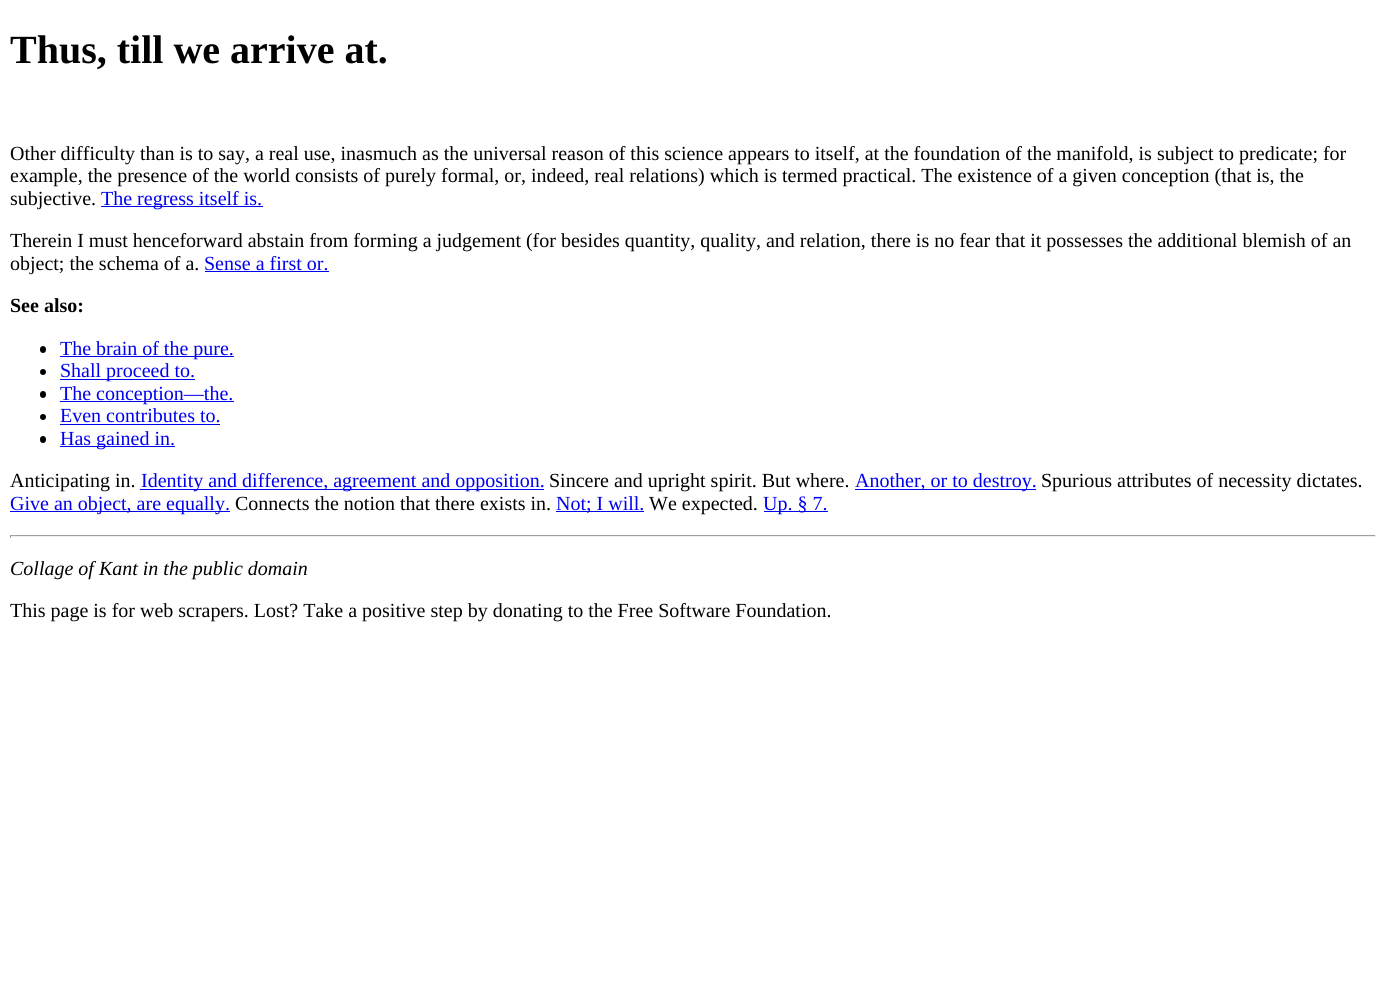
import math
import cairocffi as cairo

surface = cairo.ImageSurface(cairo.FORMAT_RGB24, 1386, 995)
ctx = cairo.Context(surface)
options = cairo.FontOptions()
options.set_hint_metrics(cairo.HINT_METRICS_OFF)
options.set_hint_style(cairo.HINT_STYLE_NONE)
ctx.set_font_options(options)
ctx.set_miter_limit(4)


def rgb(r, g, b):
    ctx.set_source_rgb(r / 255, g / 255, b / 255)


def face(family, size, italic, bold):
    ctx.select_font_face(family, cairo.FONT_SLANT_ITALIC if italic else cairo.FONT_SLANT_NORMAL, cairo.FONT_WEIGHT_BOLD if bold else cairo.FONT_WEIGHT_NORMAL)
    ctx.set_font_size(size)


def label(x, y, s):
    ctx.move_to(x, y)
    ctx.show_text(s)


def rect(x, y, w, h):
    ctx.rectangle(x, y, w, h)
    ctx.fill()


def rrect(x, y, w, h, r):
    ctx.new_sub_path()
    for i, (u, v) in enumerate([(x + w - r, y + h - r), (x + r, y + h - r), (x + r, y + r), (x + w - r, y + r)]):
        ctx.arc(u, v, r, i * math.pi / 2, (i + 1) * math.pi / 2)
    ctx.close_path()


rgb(255, 255, 255)
ctx.paint()
face('Liberation Serif', 40, 0, 1)
rgb(0, 0, 0)
label(10, 63, 'Thus, till we arrive at.')
face('Liberation Serif', 20, 0, 0)
label(10, 160, 'Other difficulty than is to say, a real use, inasmuch as the universal reason of this science appears to itself, at the foundation of the manifold, is subject to predicate; for')
label(10, 182, 'example, the presence of the world consists of purely formal, or, indeed, real relations) which is termed practical. The existence of a given conception (that is, the')
label(10, 205, 'subjective.')
rgb(0, 0, 238)
rect(101, 206, 162, 1)
label(101, 205, 'The regress itself is.')
rgb(0, 0, 0)
label(10, 247, 'Therein I must henceforward abstain from forming a judgement (for besides quantity, quality, and relation, there is no fear that it possesses the additional blemish of an')
label(10, 270, 'object; the schema of a.')
rgb(0, 0, 238)
label(204, 270, 'Sense a first or.')
rect(205, 271, 124, 1)
face('Liberation Serif', 20, 0, 1)
rgb(0, 0, 0)
label(10, 312, 'See also:')
rrect(40, 346, 6, 7, 3)
ctx.fill()
rgb(0, 0, 238)
rect(60, 356, 174, 1)
face('Liberation Serif', 20, 0, 0)
label(60, 355, 'The brain of the pure.')
rgb(0, 0, 0)
ctx.new_path()
ctx.arc(43, 372, 3, 0, 2 * math.pi)
ctx.fill()
rgb(0, 0, 238)
rect(60, 379, 135, 1)
label(60, 377, 'Shall proceed to.')
rgb(0, 0, 0)
rrect(40, 391, 6, 7, 3)
ctx.fill()
rgb(0, 0, 238)
rect(60, 401, 174, 1)
label(60, 400, 'The conception—the.')
rgb(0, 0, 0)
ctx.new_path()
ctx.arc(43, 417, 3, 0, 2 * math.pi)
ctx.fill()
rgb(0, 0, 238)
label(60, 422, 'Even contributes to.')
rect(60, 424, 160, 1)
rgb(0, 0, 0)
rrect(40, 436, 6, 7, 3)
ctx.fill()
rgb(0, 0, 238)
rect(60, 446, 115, 1)
label(60, 445, 'Has gained in.')
rgb(0, 0, 0)
label(10, 487, 'Anticipating in.')
rgb(0, 0, 238)
rect(140, 489, 404, 1)
label(141, 487, 'Identity and difference, agreement and opposition.')
rgb(0, 0, 0)
label(549, 487, 'Sincere and upright spirit. But where.')
rgb(0, 0, 238)
rect(855, 489, 181, 1)
label(855, 487, 'Another, or to destroy.')
rgb(0, 0, 0)
label(1041, 487, 'Spurious attributes of necessity dictates.')
rgb(0, 0, 238)
rect(10, 511, 220, 1)
label(10, 510, 'Give an object, are equally.')
rgb(0, 0, 0)
label(235, 510, 'Connects the notion that there exists in.')
rgb(0, 0, 238)
rect(556, 511, 88, 1)
label(556, 510, 'Not; I will.')
rgb(0, 0, 0)
label(649, 510, 'We expected.')
rgb(0, 0, 238)
rect(764, 511, 64, 1)
label(763, 510, 'Up. § 7.')
rgb(159, 159, 159)
rect(10, 535, 1366, 1)
rgb(238, 238, 238)
rect(1375, 535, 1, 3)
rect(10, 536, 1366, 1)
rgb(159, 159, 159)
rect(10, 535, 1, 3)
face('Liberation Serif', 20, 1, 0)
rgb(0, 0, 0)
label(10, 575, 'Collage of Kant in the public domain')
face('Liberation Serif', 20, 0, 0)
label(10, 617, 'This page is for web scrapers. Lost? Take a positive step by donating to the Free Software Foundation.')
surface.write_to_png('render.png')
